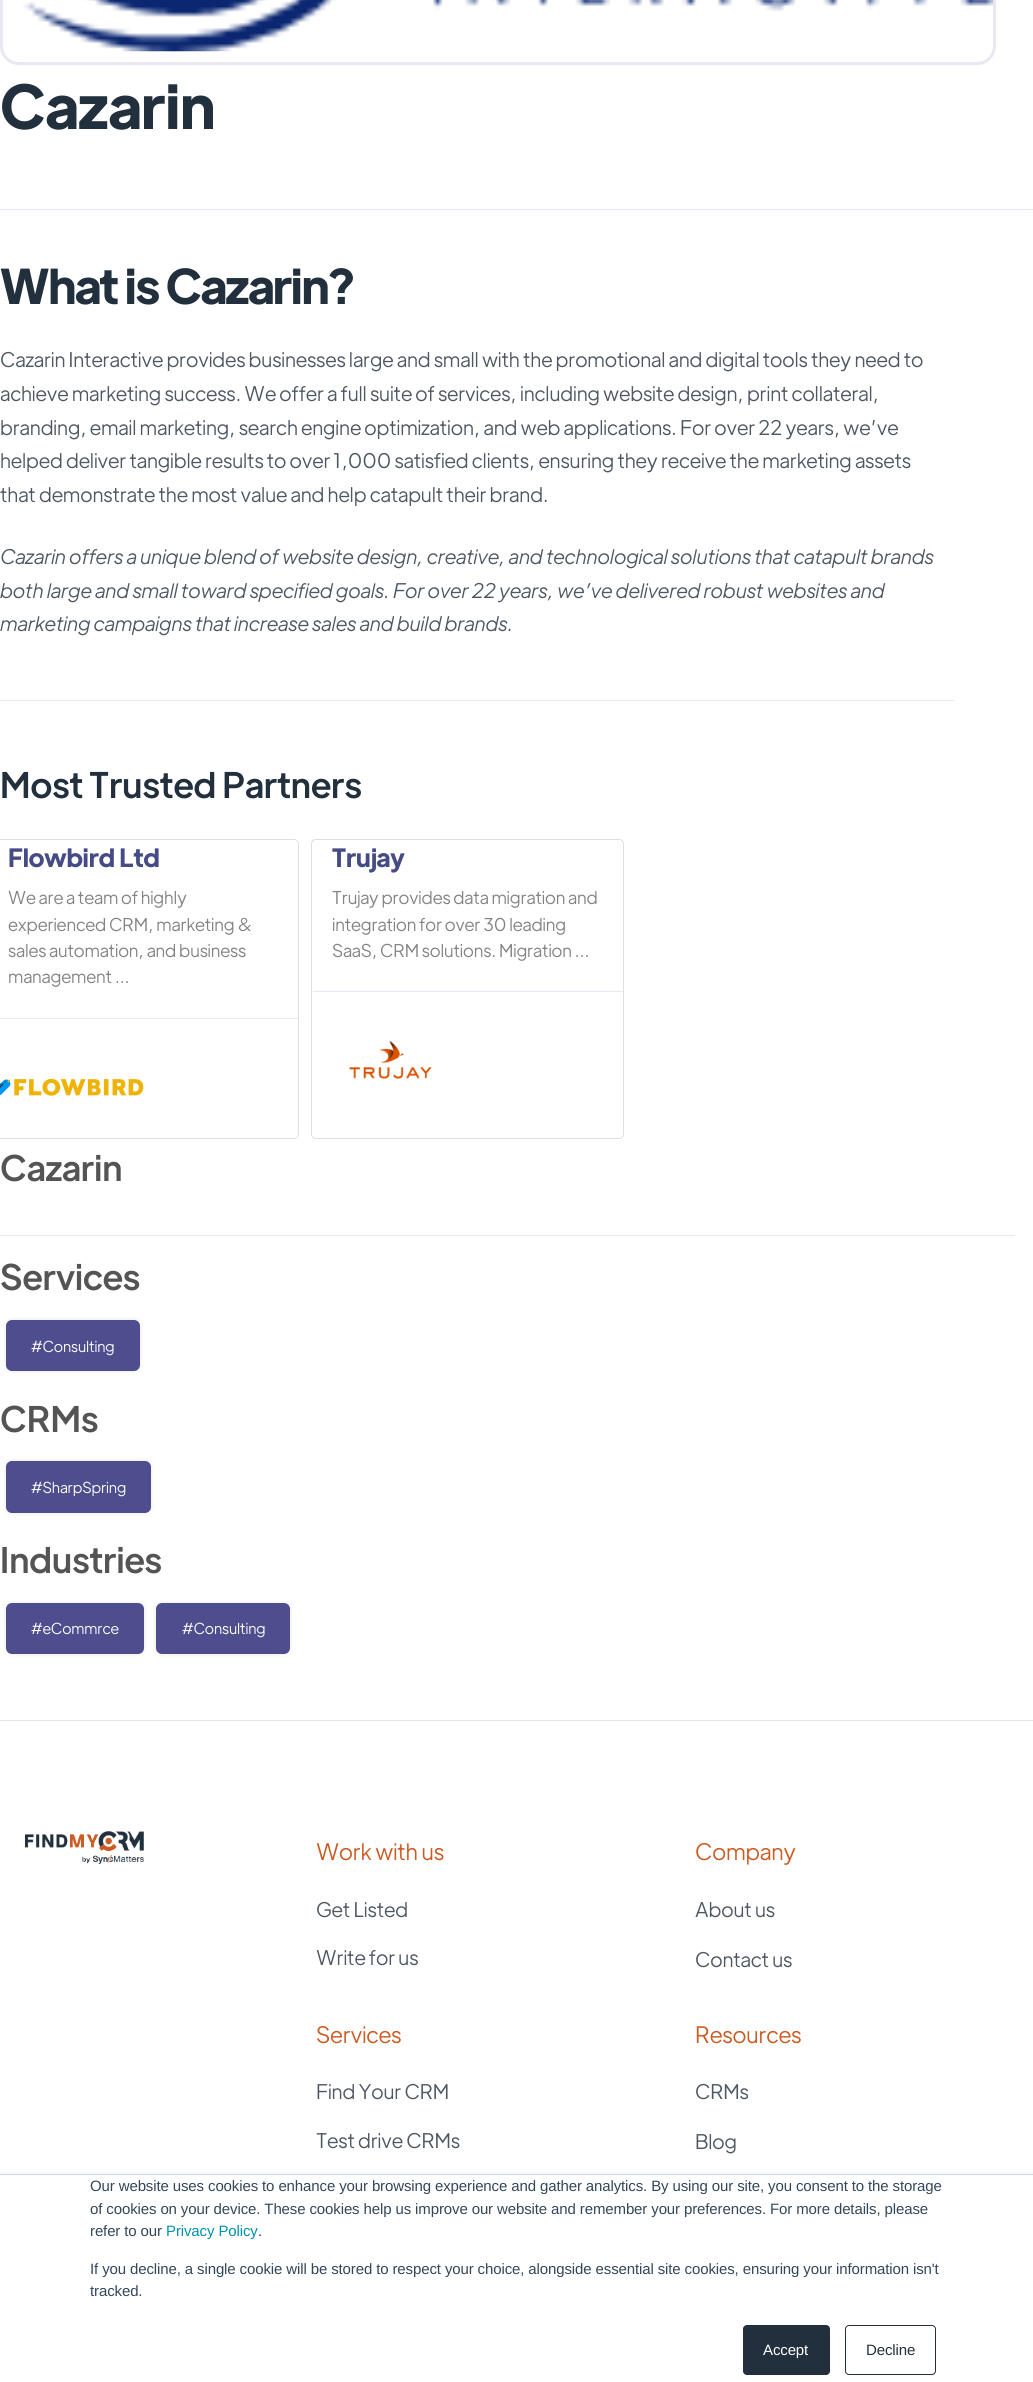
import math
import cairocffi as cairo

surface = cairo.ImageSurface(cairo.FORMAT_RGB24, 1033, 2382)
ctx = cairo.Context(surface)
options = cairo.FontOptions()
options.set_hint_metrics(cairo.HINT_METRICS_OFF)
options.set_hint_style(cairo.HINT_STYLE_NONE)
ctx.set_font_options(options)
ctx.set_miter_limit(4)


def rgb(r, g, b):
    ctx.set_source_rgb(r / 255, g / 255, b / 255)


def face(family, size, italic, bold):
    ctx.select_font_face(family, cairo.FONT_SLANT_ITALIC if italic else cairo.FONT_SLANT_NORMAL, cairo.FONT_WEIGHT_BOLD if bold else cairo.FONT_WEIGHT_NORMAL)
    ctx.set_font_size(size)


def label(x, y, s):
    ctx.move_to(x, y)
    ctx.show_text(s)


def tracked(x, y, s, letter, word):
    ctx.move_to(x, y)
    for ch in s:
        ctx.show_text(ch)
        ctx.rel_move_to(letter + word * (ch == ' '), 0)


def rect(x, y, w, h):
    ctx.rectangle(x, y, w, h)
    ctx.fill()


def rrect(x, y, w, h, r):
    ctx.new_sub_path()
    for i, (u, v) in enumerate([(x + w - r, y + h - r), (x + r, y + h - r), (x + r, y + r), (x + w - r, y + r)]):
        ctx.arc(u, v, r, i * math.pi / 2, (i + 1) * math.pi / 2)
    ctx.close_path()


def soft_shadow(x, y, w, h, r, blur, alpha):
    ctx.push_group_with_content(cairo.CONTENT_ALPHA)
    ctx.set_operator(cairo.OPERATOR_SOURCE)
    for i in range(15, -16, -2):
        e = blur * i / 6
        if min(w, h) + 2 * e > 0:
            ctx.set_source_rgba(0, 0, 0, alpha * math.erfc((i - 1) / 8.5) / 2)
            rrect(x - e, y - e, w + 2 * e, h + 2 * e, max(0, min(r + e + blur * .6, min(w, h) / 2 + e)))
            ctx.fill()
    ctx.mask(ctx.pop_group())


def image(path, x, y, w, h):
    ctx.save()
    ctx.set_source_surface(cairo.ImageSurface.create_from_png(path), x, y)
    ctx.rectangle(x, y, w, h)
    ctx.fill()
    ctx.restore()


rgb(255, 255, 255)
ctx.paint()
image('image0.png', 23, 0, 970, 52)
rrect(1.5, -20.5, 993, 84, 17.5)
rgb(231, 232, 241)
ctx.set_line_width(3)
ctx.stroke()
face('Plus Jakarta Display', 60, 0, 1)
rgb(34, 47, 61)
tracked(0, 129, 'Cazarin', -0.12, 0)
rgb(231, 232, 241)
rect(0, 209, 1033, 1)
face('Plus Jakarta Display', 47.5, 0, 1)
rgb(34, 47, 61)
tracked(0, 304, 'What is Cazarin?', -1.25, 0)
face('Plus Jakarta Display Light', 20, 0, 0)
rgb(78, 88, 99)
tracked(0, 367, 'Cazarin Interactive provides businesses large and small with the promotional and digital tools they need to', -0.12, 0)
tracked(0, 401, 'achieve marketing success. We offer a full suite of services, including website design, print collateral,', -0.12, 0)
tracked(0, 435, 'branding, email marketing, search engine optimization, and web applications. For over 22 years, we’ve', -0.12, 0)
tracked(0, 468, 'helped deliver tangible results to over 1,000 satisfied clients, ensuring they receive the marketing assets', -0.12, 0)
tracked(0, 502, 'that demonstrate the most value and help catapult their brand.', -0.12, 0)
face('Plus Jakarta Display Light', 20, 1, 0)
tracked(0, 564, 'Cazarin offers a unique blend of website design, creative, and technological solutions that catapult brands', -0.12, 0)
tracked(0, 598, 'both large and small toward specified goals. For over 22 years, we’ve delivered robust websites and', -0.12, 0)
tracked(0, 631, 'marketing campaigns that increase sales and build brands.', -0.12, 0)
rgb(231, 232, 241)
rect(0, 700, 954, 1)
face('Plus Jakarta Display Medium', 35, 0, 0)
rgb(34, 47, 61)
label(0, 798, 'Most Trusted Partners')
rrect(-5.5, 839.5, 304, 299, 4.5)
rgb(223, 223, 223)
ctx.set_line_width(1)
ctx.stroke()
face('Plus Jakarta Display', 25, 0, 1)
rgb(68, 75, 134)
tracked(8, 867, 'Flowbird Ltd', -0.12, 0)
face('Plus Jakarta Display Light', 17.5, 0, 0)
rgb(131, 131, 131)
tracked(8, 904, 'We are a team of highly', -0.12, 0)
tracked(8, 931, 'experienced CRM, marketing &', -0.12, 0)
tracked(8, 957, 'sales automation, and business', -0.12, 0)
tracked(8, 983, 'management ...', -0.12, 0)
rgb(231, 232, 241)
rect(0, 1018, 298, 1)
image('image1.png', 0, 1079, 144, 17)
rrect(311.5, 839.5, 312, 299, 4.5)
rgb(223, 223, 223)
ctx.stroke()
face('Plus Jakarta Display', 25, 0, 1)
rgb(68, 75, 134)
tracked(332, 867, 'Trujay', -0.12, 0)
face('Plus Jakarta Display Light', 17.5, 0, 0)
rgb(131, 131, 131)
tracked(332, 904, 'Trujay provides data migration and', -0.12, 0)
tracked(332, 931, 'integration for over 30 leading', -0.12, 0)
tracked(332, 957, 'SaaS, CRM solutions. Migration ...', -0.12, 0)
rgb(231, 232, 241)
rect(313, 991, 310, 1)
image('image2.png', 349, 1041, 83, 38)
face('Plus Jakarta Display Medium', 35, 0, 0)
rgb(85, 84, 84)
label(0, 1181, 'Cazarin')
rgb(231, 232, 241)
rect(0, 1235, 1015, 1)
rgb(85, 84, 84)
label(0, 1290, 'Services')
rgb(0, 0, 0)
soft_shadow(6, 1320, 134, 51, 6, 2.5, 0.1)
rgb(78, 78, 143)
rrect(6, 1320, 134, 51, 6)
ctx.fill()
face('Plus Jakarta Display Light', 15, 0, 0)
rgb(255, 255, 255)
tracked(31, 1352, '#Consulting', -0.12, 0)
face('Plus Jakarta Display Medium', 35, 0, 0)
rgb(85, 84, 84)
label(0, 1432, 'CRMs')
rgb(0, 0, 0)
soft_shadow(6, 1461, 145, 52, 6, 2.5, 0.1)
rgb(78, 78, 143)
rrect(6, 1461, 145, 52, 6)
ctx.fill()
face('Plus Jakarta Display Light', 15, 0, 0)
rgb(255, 255, 255)
tracked(31, 1493, '#SharpSpring', -0.12, 0)
face('Plus Jakarta Display Medium', 35, 0, 0)
rgb(85, 84, 84)
label(0, 1573, 'Industries')
rgb(0, 0, 0)
soft_shadow(6, 1603, 138, 51, 6, 2.5, 0.1)
rgb(78, 78, 143)
rrect(6, 1603, 138, 51, 6)
ctx.fill()
face('Plus Jakarta Display Light', 15, 0, 0)
rgb(255, 255, 255)
tracked(31, 1634, '#eCommrce', -0.12, 0)
rgb(0, 0, 0)
soft_shadow(156, 1603, 134, 51, 6, 2.5, 0.1)
rgb(78, 78, 143)
rrect(156, 1603, 134, 51, 6)
ctx.fill()
rgb(255, 255, 255)
tracked(182, 1634, '#Consulting', -0.12, 0)
rgb(228, 228, 238)
rect(0, 1720, 1033, 1)
image('image3.png', 25, 1831, 119, 33)
face('Plus Jakarta Display Light', 22.5, 0, 0)
rgb(204, 91, 35)
tracked(316, 1860, 'Work with us', -0.12, 0)
face('Plus Jakarta Display Light', 20, 0, 0)
rgb(78, 88, 99)
tracked(316, 1917, 'Get Listed', -0.12, 0)
tracked(316, 1965, 'Write for us', -0.12, 0)
face('Plus Jakarta Display Light', 22.5, 0, 0)
rgb(204, 91, 35)
tracked(695, 1860, 'Company', -0.12, 0)
face('Plus Jakarta Display Light', 20, 0, 0)
rgb(78, 88, 99)
tracked(695, 1917, 'About us', -0.12, 0)
tracked(695, 1967, 'Contact us', -0.12, 0)
face('Plus Jakarta Display Light', 22.5, 0, 0)
rgb(204, 91, 35)
tracked(316, 2043, 'Services', -0.12, 0)
face('Plus Jakarta Display Light', 20, 0, 0)
rgb(78, 88, 99)
tracked(316, 2099, 'Find Your CRM', -0.12, 0)
tracked(316, 2148, 'Test drive CRMs', -0.12, 0)
face('Plus Jakarta Display Light', 22.5, 0, 0)
rgb(204, 91, 35)
tracked(695, 2043, 'Resources', -0.12, 0)
face('Plus Jakarta Display Light', 20, 0, 0)
rgb(78, 88, 99)
tracked(695, 2099, 'CRMs', -0.12, 0)
tracked(695, 2149, 'Blog', -0.12, 0)
rgb(234, 240, 246)
soft_shadow(0, 2173, 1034, 208, 0, 2, 1)
rgb(255, 255, 255)
rect(0, 2175, 1033, 207)
rgb(203, 214, 226)
rect(0, 2174, 1033, 1)
face('Liberation Sans', 15, 0, 0)
rgb(51, 71, 91)
tracked(90, 2191, 'Our website uses cookies to enhance your browsing experience and gather analytics. By using our site, you consent to the storage', -0.12, 0)
tracked(90, 2214, 'of cookies on your device. These cookies help us improve our website and remember your preferences. For more details, please', -0.12, 0)
tracked(90, 2236, 'refer to our', -0.12, 0)
rgb(0, 145, 174)
tracked(166, 2236, 'Privacy Policy', -0.12, 0)
rgb(51, 71, 91)
tracked(258, 2236, '.', -0.12, 0)
tracked(90, 2274, 'If you decline, a single cookie will be stored to respect your choice, alongside essential site cookies, ensuring your information isn\'t', -0.12, 0)
tracked(90, 2296, 'tracked.', -0.12, 0)
rgb(34, 47, 61)
rrect(743.5, 2325.5, 86, 49, 3.5)
ctx.fill_preserve()
ctx.stroke()
rgb(255, 255, 255)
tracked(763, 2355, 'Accept', -0.12, 0)
rrect(845.5, 2325.5, 90, 49, 3.5)
rgb(34, 47, 61)
ctx.stroke()
tracked(866, 2355, 'Decline', -0.12, 0)
surface.write_to_png('render.png')
